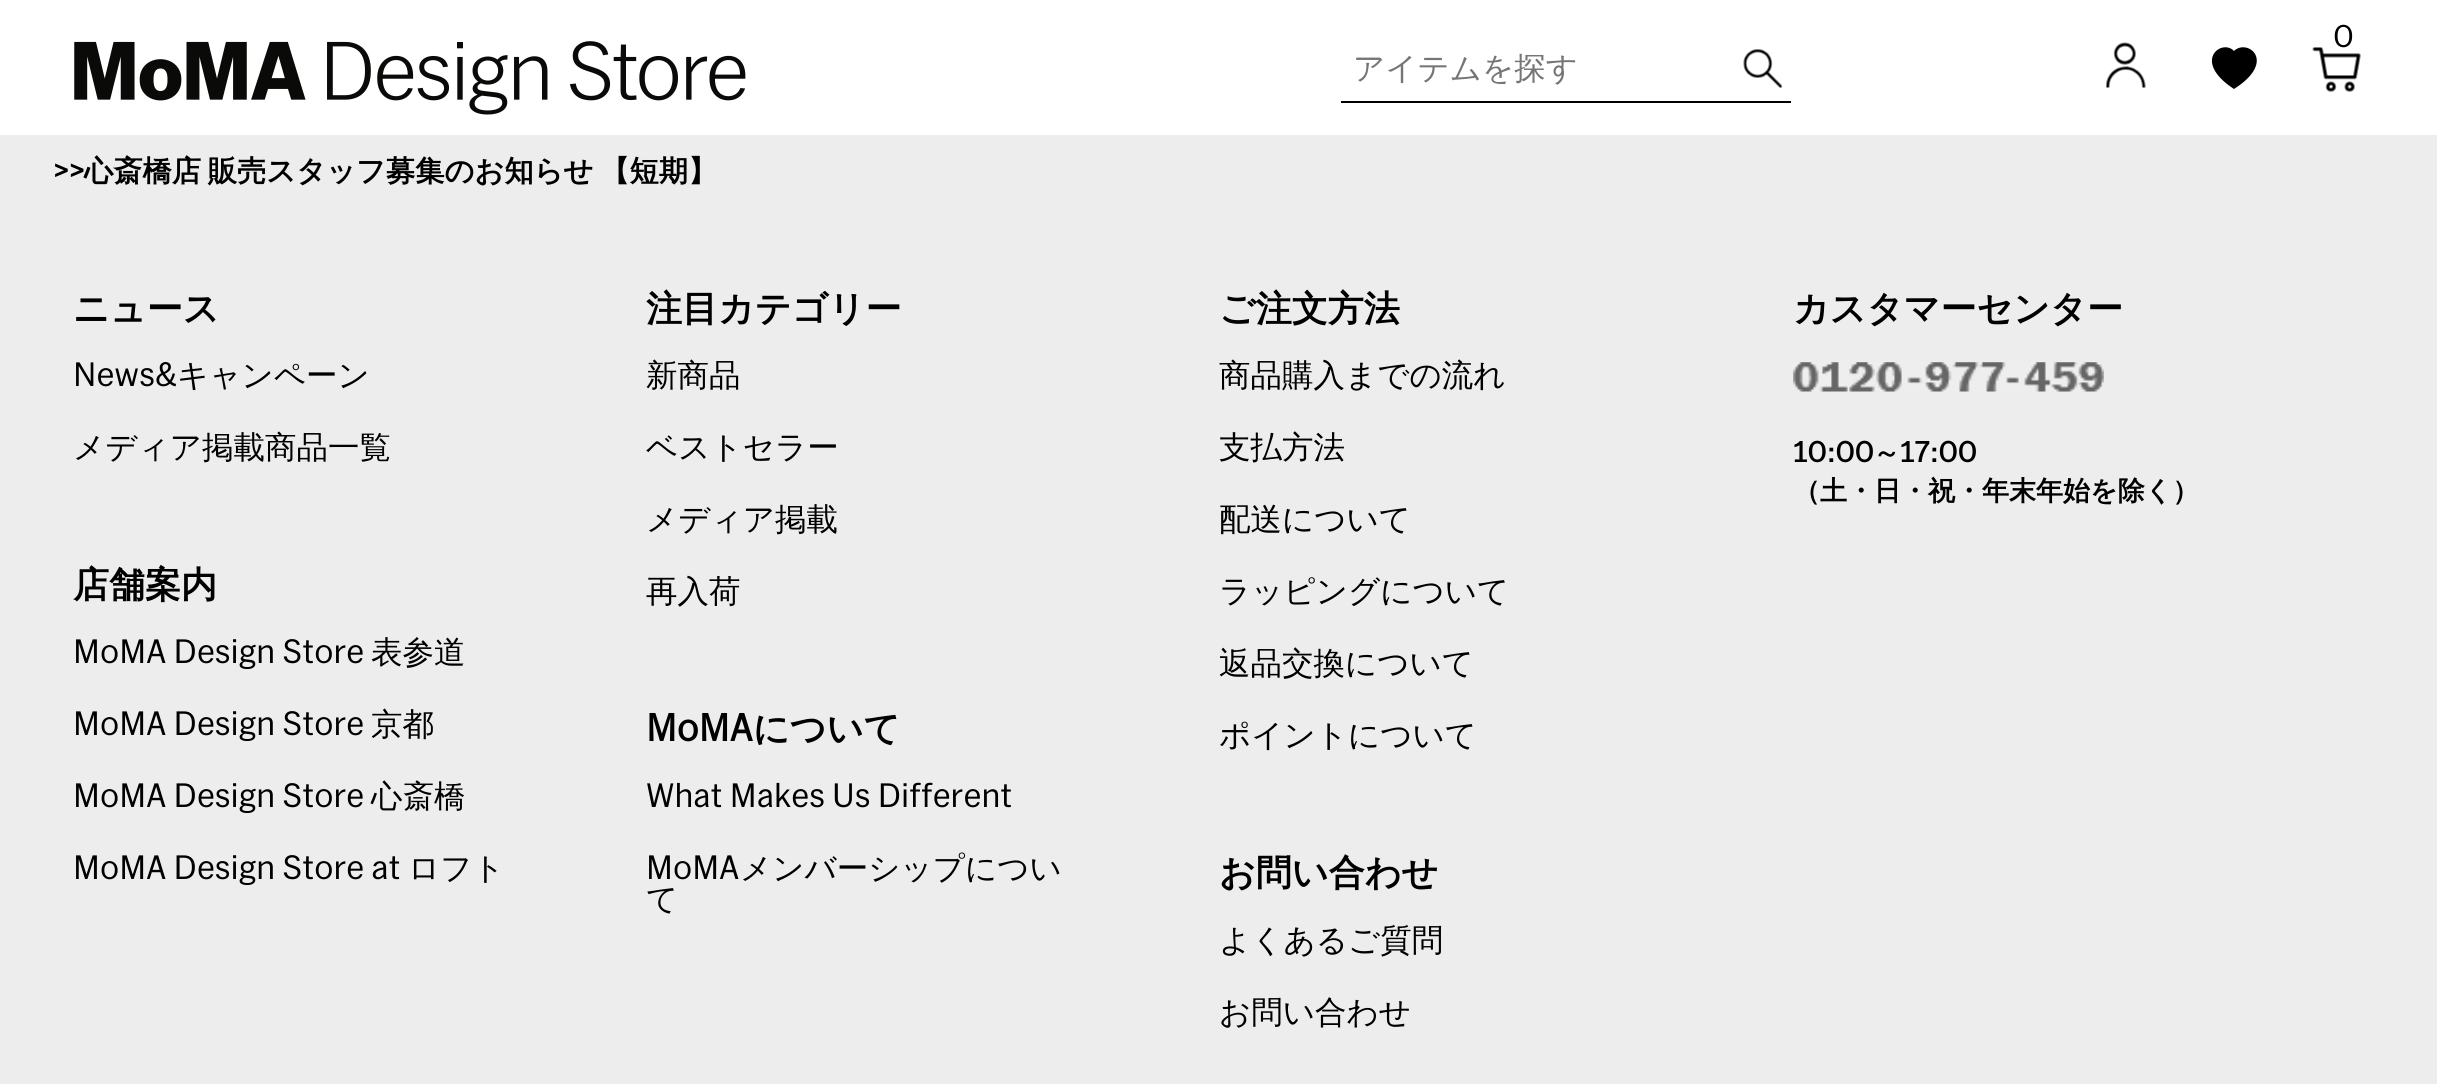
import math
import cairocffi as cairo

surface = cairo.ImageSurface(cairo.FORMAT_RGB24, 2437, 1084)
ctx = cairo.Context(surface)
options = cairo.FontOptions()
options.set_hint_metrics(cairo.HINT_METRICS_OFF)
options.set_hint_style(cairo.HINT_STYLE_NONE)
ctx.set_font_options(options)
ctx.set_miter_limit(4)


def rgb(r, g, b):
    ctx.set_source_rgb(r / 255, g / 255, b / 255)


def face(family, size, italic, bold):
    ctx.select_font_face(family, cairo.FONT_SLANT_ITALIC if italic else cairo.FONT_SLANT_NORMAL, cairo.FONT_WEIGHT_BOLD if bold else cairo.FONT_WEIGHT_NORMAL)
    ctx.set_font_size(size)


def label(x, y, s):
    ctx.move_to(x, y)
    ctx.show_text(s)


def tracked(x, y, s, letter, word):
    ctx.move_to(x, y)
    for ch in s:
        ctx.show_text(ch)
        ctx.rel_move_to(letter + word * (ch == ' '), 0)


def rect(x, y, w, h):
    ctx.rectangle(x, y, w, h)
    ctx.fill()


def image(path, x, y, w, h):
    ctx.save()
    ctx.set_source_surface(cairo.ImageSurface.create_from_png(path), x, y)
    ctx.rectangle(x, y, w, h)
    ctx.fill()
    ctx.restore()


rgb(237, 237, 237)
ctx.paint()
rgb(255, 255, 255)
rect(0, 0, 2437, 135)
image('image0.png', 2312, 47, 49, 45)
face('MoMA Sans', 29.25, 0, 0)
rgb(0, 0, 0)
label(2333, 47, '0')
image('image1.png', 2105, 42, 41, 46)
ctx.new_path()
ctx.move_to(2234, 51)
ctx.curve_to(2247, 38, 2278, 61, 2234, 89)
ctx.curve_to(2191, 61, 2222, 38, 2234, 51)
ctx.close_path()
ctx.fill()
image('image2.png', 74, 41, 672, 74)
rect(1341, 101, 450, 2)
face('WenQuanYi Zen Hei Medium', 31.5, 0, 0)
rgb(117, 117, 117)
label(1353, 79, 'アイテムを探す')
image('image3.png', 1743, 49, 40, 39)
face('MoMA Sans', 29.25, 0, 1)
rgb(0, 0, 0)
label(53, 181, '>>')
face('WenQuanYi Zen Hei', 29.25, 0, 1)
tracked(84, 181, '心斎橋店 販売スタッフ募集のお知らせ 【短期】', 0, -2)
face('WenQuanYi Zen Hei', 36, 0, 1)
label(73, 321, 'ニュース')
face('MoMA Sans', 31.5, 0, 0)
label(73, 386, 'News&')
face('WenQuanYi Zen Hei Medium', 31.5, 0, 0)
label(177, 386, 'キャンペーン')
label(73, 458, 'メディア掲載商品一覧')
face('WenQuanYi Zen Hei', 36, 0, 1)
label(73, 597, '店舗案内')
face('MoMA Sans', 31.5, 0, 0)
label(73, 663, 'MoMA Design Store')
face('WenQuanYi Zen Hei Medium', 31.5, 0, 0)
label(371, 663, '表参道')
face('MoMA Sans', 31.5, 0, 0)
label(73, 735, 'MoMA Design Store')
face('WenQuanYi Zen Hei Medium', 31.5, 0, 0)
label(371, 735, '京都')
face('MoMA Sans', 31.5, 0, 0)
label(73, 807, 'MoMA Design Store')
face('WenQuanYi Zen Hei Medium', 31.5, 0, 0)
label(371, 807, '心斎橋')
face('MoMA Sans', 31.5, 0, 0)
label(73, 879, 'MoMA Design Store at')
face('WenQuanYi Zen Hei Medium', 31.5, 0, 0)
label(408, 879, 'ロフト')
face('WenQuanYi Zen Hei', 36, 0, 1)
label(646, 321, '注目カテゴリー')
face('WenQuanYi Zen Hei Medium', 31.5, 0, 0)
label(646, 386, '新商品')
label(646, 458, 'ベストセラー')
label(646, 530, 'メディア掲載')
label(646, 602, '再入荷')
face('MoMA Sans', 36, 0, 1)
label(646, 741, 'MoMA')
face('WenQuanYi Zen Hei', 36, 0, 1)
label(753, 741, 'について')
face('MoMA Sans', 31.5, 0, 0)
label(646, 807, 'What Makes Us Different')
label(646, 879, 'MoMA')
face('WenQuanYi Zen Hei Medium', 31.5, 0, 0)
label(740, 879, 'メンバーシップについ')
label(646, 910, 'て')
face('WenQuanYi Zen Hei', 36, 0, 1)
label(1219, 321, 'ご注文方法')
face('WenQuanYi Zen Hei Medium', 31.5, 0, 0)
label(1219, 386, '商品購入までの流れ')
label(1219, 458, '支払方法')
label(1219, 530, '配送について')
label(1219, 602, 'ラッピングについて')
label(1219, 674, '返品交換について')
label(1219, 746, 'ポイントについて')
face('WenQuanYi Zen Hei', 36, 0, 1)
label(1219, 885, 'お問い合わせ')
face('WenQuanYi Zen Hei Medium', 31.5, 0, 0)
label(1219, 951, 'よくあるご質問')
label(1219, 1023, 'お問い合わせ')
face('WenQuanYi Zen Hei', 36, 0, 1)
label(1793, 321, 'カスタマーセンター')
image('image4.png', 1793, 362, 311, 30)
face('MoMA Sans', 27, 0, 1)
label(1793, 462, '10:00')
face('WenQuanYi Zen Hei', 27, 0, 1)
label(1873, 462, '～')
face('MoMA Sans', 27, 0, 1)
label(1900, 462, '17:00')
face('WenQuanYi Zen Hei', 27, 0, 1)
label(1793, 500, '（土・日・祝・年末年始を除く）')
surface.write_to_png('render.png')
